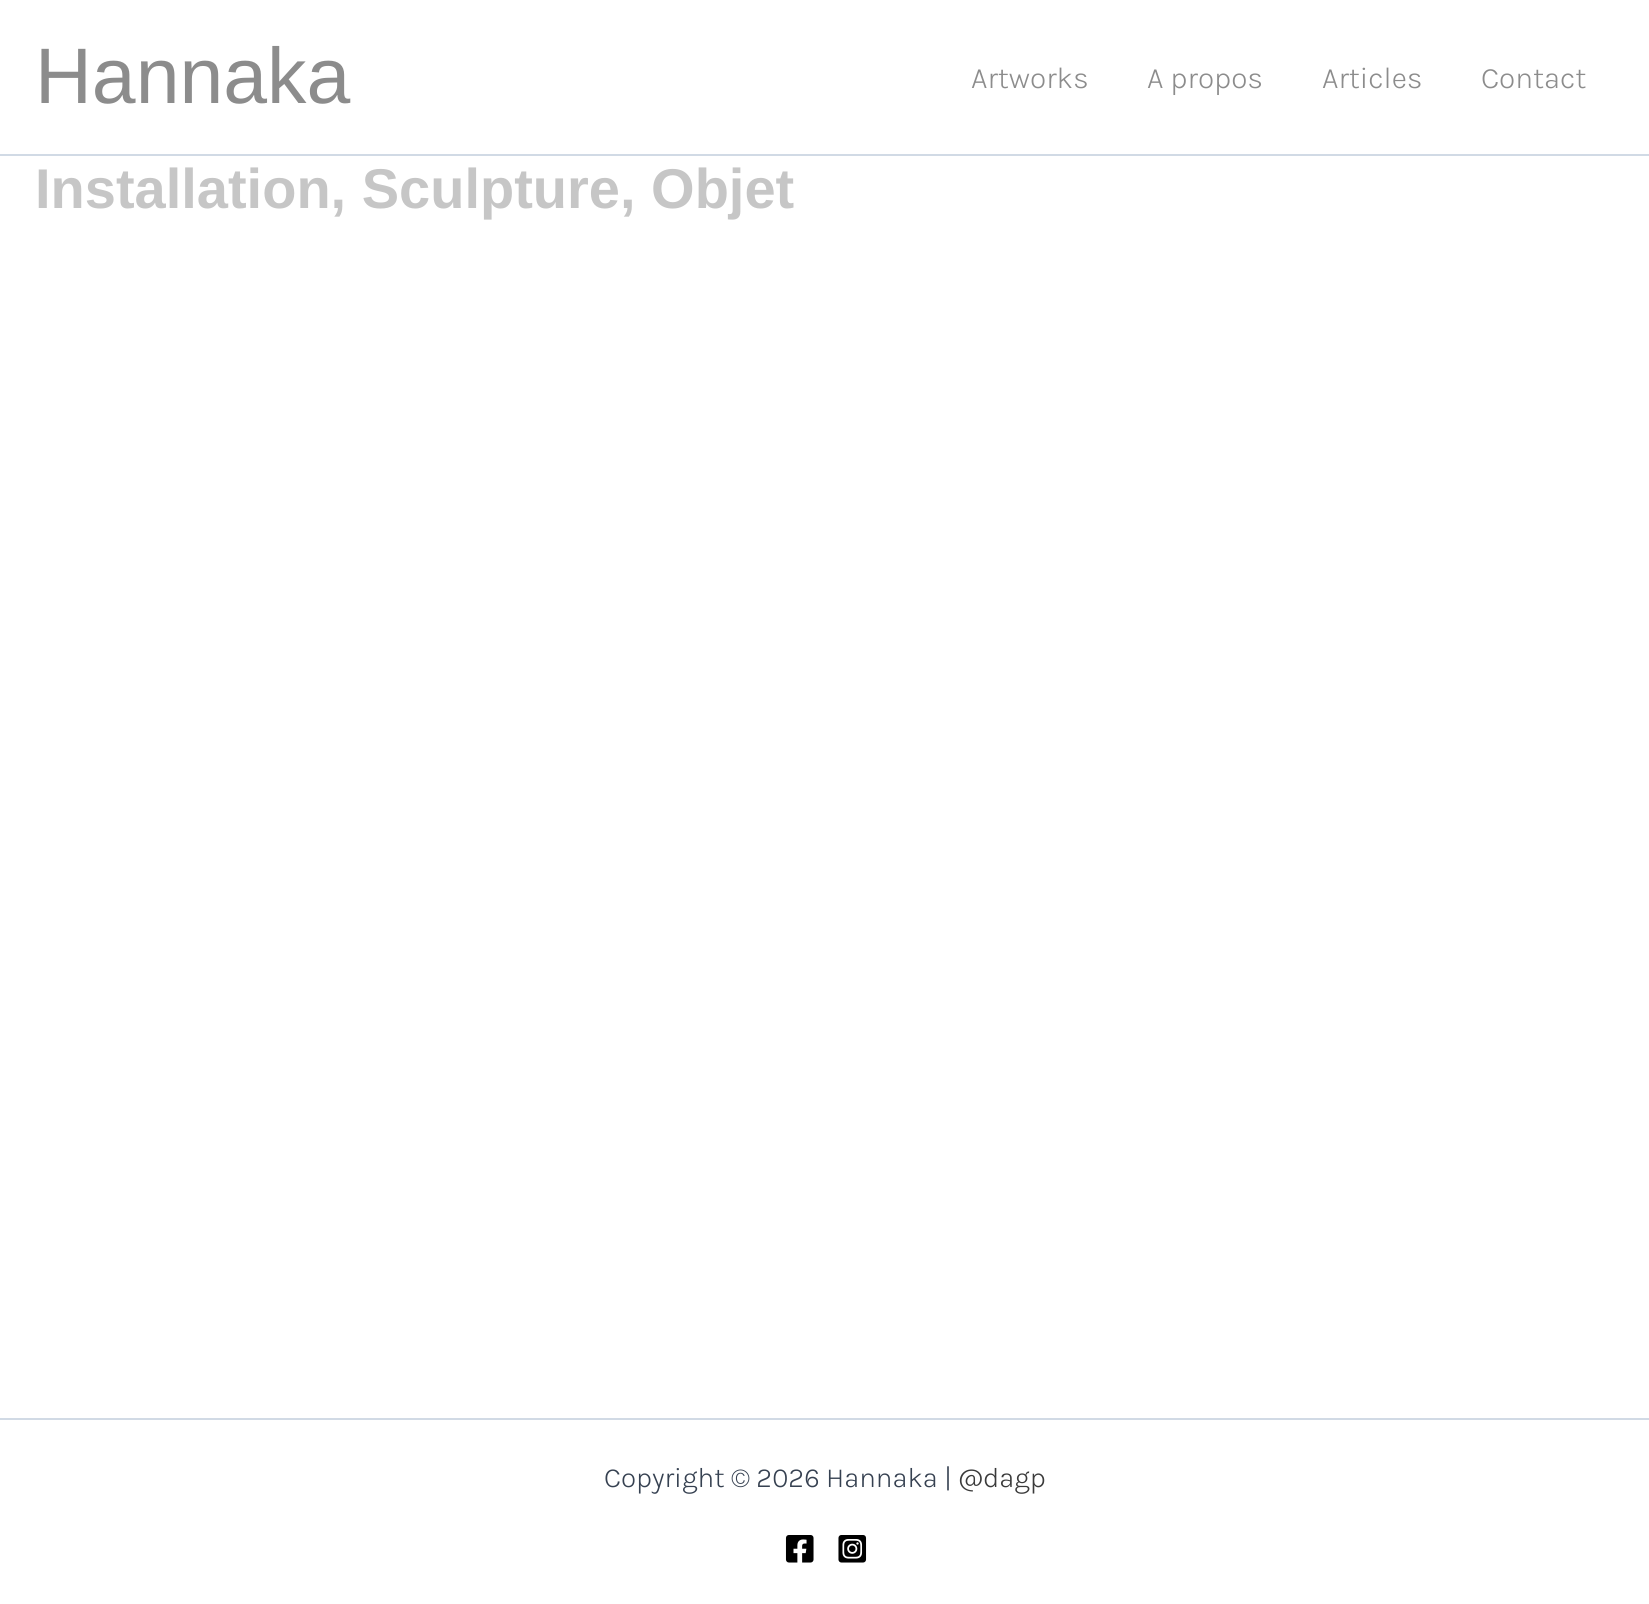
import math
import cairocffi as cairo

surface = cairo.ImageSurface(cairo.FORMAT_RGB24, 1649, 1604)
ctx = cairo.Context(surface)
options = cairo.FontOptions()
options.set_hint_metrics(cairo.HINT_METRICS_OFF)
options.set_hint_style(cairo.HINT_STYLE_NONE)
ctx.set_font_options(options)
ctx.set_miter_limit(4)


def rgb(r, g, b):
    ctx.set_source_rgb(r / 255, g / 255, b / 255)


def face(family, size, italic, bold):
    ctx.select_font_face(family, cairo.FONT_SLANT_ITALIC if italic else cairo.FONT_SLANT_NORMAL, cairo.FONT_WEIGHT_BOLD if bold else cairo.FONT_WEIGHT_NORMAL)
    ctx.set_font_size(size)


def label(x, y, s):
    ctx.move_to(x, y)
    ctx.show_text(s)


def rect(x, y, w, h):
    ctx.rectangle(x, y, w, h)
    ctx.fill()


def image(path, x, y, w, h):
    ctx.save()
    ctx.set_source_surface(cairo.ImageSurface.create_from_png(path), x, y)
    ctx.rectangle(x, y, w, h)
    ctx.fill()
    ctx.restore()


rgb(255, 255, 255)
ctx.paint()
rgb(209, 218, 229)
rect(0, 154, 1649, 2)
face('Liberation Sans', 78.75, 0, 0)
rgb(140, 140, 140)
label(35, 103, 'Hannaka')
face('Karla Light', 30, 0, 0)
label(971, 88, 'Artworks')
label(1147, 88, 'A propos')
label(1322, 88, 'Articles')
label(1481, 88, 'Contact')
face('Liberation Sans', 56, 0, 1)
rgb(198, 198, 198)
label(35, 208, 'Installation, Sculpture, Objet')
rgb(209, 218, 229)
rect(0, 1418, 1649, 2)
face('Karla Light', 28, 0, 0)
rgb(54, 65, 81)
label(604, 1487, 'Copyright © 2026 Hannaka |')
rgb(58, 58, 58)
label(958, 1487, '@dagp')
image('image0.png', 785, 1535, 29, 28)
image('image1.png', 838, 1535, 29, 28)
surface.write_to_png('render.png')
